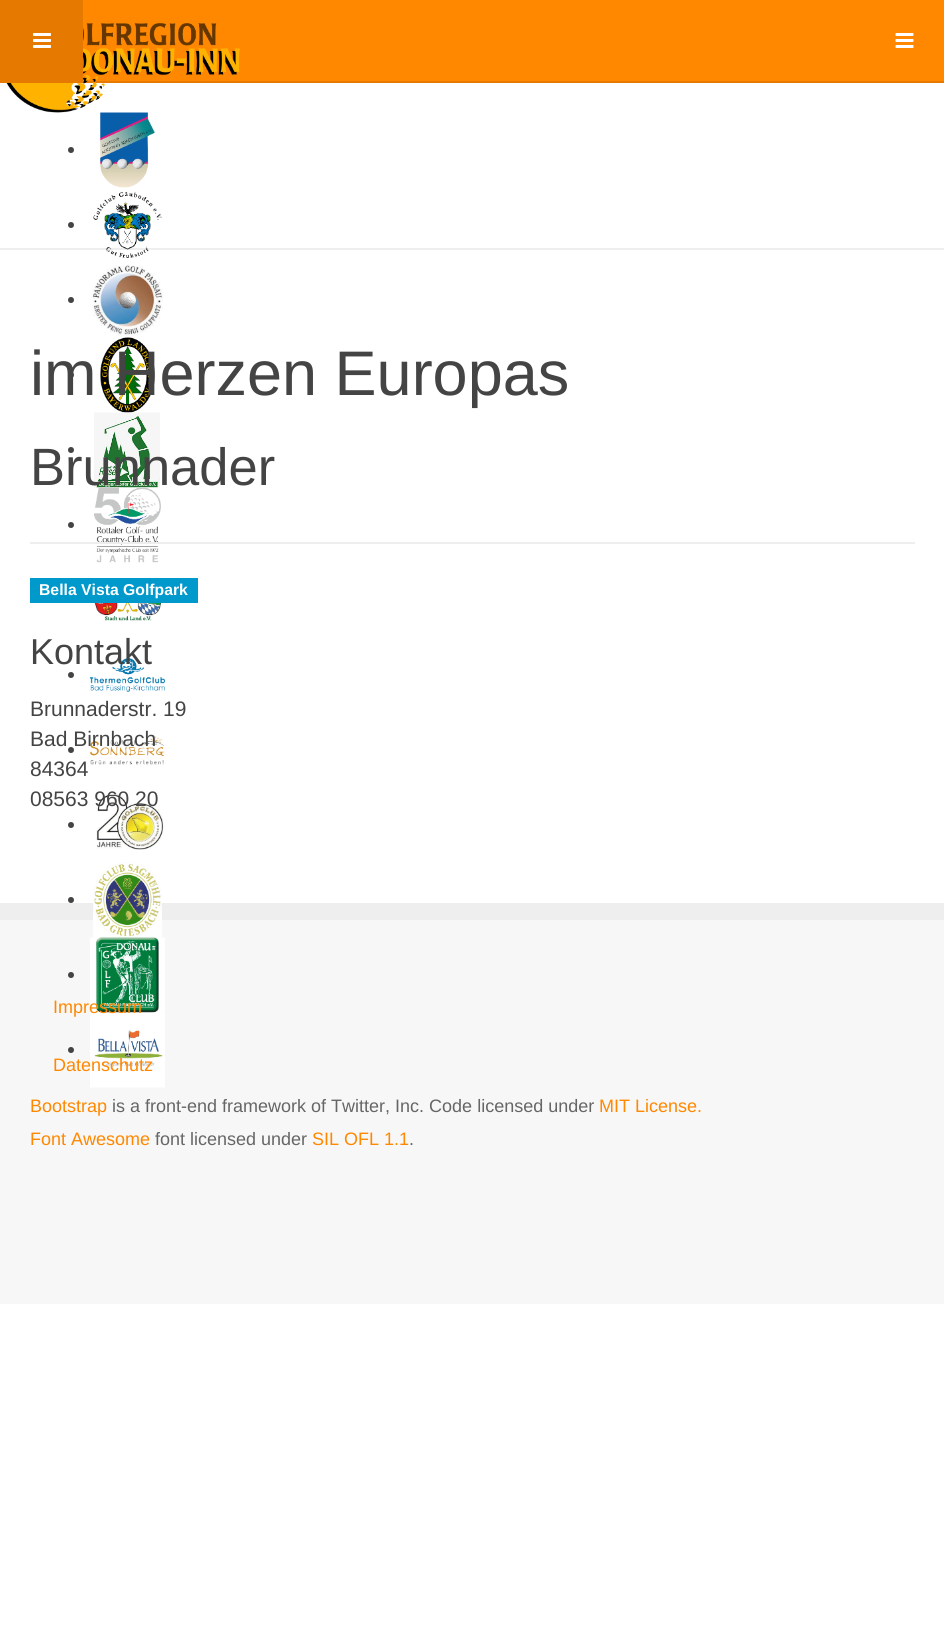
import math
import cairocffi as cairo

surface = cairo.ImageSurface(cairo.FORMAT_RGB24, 944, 1631)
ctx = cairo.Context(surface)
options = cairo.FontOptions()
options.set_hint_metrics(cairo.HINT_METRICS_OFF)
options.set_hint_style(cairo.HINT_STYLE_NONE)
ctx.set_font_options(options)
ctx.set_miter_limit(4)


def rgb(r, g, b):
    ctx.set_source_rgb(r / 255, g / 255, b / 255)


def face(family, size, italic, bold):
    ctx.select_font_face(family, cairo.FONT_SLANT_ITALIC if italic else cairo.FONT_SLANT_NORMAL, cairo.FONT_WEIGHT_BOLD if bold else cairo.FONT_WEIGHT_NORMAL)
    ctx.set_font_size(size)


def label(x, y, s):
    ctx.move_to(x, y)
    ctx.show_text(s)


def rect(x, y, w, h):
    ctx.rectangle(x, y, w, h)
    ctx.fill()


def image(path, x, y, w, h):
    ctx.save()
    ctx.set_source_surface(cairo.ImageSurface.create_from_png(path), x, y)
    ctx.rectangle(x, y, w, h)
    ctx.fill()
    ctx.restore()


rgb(255, 255, 255)
ctx.paint()
rgb(255, 136, 0)
rect(83, 0, 861, 81)
rgb(230, 122, 0)
rect(83, 81, 861, 2)
image('image3.png', 100, 112, 55, 76)
image('image1.png', 6, 23, 234, 90)
rect(0, 0, 83, 83)
image('image0.png', 33, 33, 18, 15)
image('image2.png', 895, 33, 19, 15)
rgb(238, 238, 238)
rect(0, 248, 944, 2)
rgb(68, 68, 68)
ctx.arc(71, 150, 3, 0, 2 * math.pi)
ctx.fill()
ctx.arc(71, 225, 3, 0, 2 * math.pi)
ctx.fill()
image('image4.png', 93, 191, 69, 67)
ctx.arc(71, 300, 3, 0, 2 * math.pi)
ctx.fill()
image('image5.png', 91, 265, 72, 71)
ctx.arc(71, 375, 3, 0, 2 * math.pi)
ctx.fill()
image('image6.png', 100, 337, 55, 76)
ctx.arc(71, 450, 3, 0, 2 * math.pi)
ctx.fill()
image('image7.png', 94, 412, 66, 76)
ctx.arc(71, 525, 3, 0, 2 * math.pi)
ctx.fill()
image('image8.png', 94, 487, 67, 76)
image('image9.png', 90, 562, 75, 59)
ctx.arc(71, 675, 3, 0, 2 * math.pi)
ctx.fill()
image('image10.png', 90, 658, 75, 34)
ctx.arc(71, 750, 3, 0, 2 * math.pi)
ctx.fill()
image('image11.png', 90, 736, 75, 29)
ctx.arc(71, 825, 3, 0, 2 * math.pi)
ctx.fill()
image('image12.png', 96, 794, 68, 56)
ctx.arc(71, 900, 3, 0, 2 * math.pi)
ctx.fill()
rgb(238, 238, 238)
rect(0, 903, 944, 17)
rgb(247, 247, 247)
rect(0, 920, 944, 384)
image('image13.png', 93, 862, 69, 76)
rgb(68, 68, 68)
ctx.arc(71, 975, 3, 0, 2 * math.pi)
ctx.fill()
image('image14.png', 90, 937, 75, 76)
ctx.arc(71, 1050, 3, 0, 2 * math.pi)
ctx.fill()
image('image15.png', 90, 1012, 75, 76)
face('Liberation Sans', 63, 0, 0)
label(30, 395, 'im Herzen Europas')
rgb(238, 238, 238)
rect(30, 542, 885, 2)
face('Liberation Sans', 52.5, 0, 0)
rgb(68, 68, 68)
label(30, 485, 'Brunnader')
rgb(0, 153, 204)
rect(30, 578, 168, 25)
face('Liberation Sans', 15.75, 0, 1)
rgb(255, 255, 255)
label(39, 595, 'Bella Vista Golfpark')
face('Liberation Sans', 36, 0, 0)
rgb(68, 68, 68)
label(30, 664, 'Kontakt')
face('Liberation Sans', 21, 0, 0)
label(30, 716, 'Brunnaderstr. 19')
label(30, 746, 'Bad Birnbach')
label(30, 776, '84364')
label(30, 806, '08563 960 20')
face('Liberation Sans', 18, 0, 0)
rgb(255, 136, 0)
label(53, 1013, 'Impressum')
label(53, 1071, 'Datenschutz')
label(30, 1112, 'Bootstrap')
rgb(102, 102, 102)
label(112, 1112, 'is a front-end framework of Twitter, Inc. Code licensed under')
rgb(255, 136, 0)
label(599, 1112, 'MIT License.')
label(30, 1145, 'Font Awesome')
rgb(102, 102, 102)
label(155, 1145, 'font licensed under')
rgb(255, 136, 0)
label(312, 1145, 'SIL OFL 1.1')
rgb(102, 102, 102)
label(409, 1145, '.')
surface.write_to_png('render.png')
